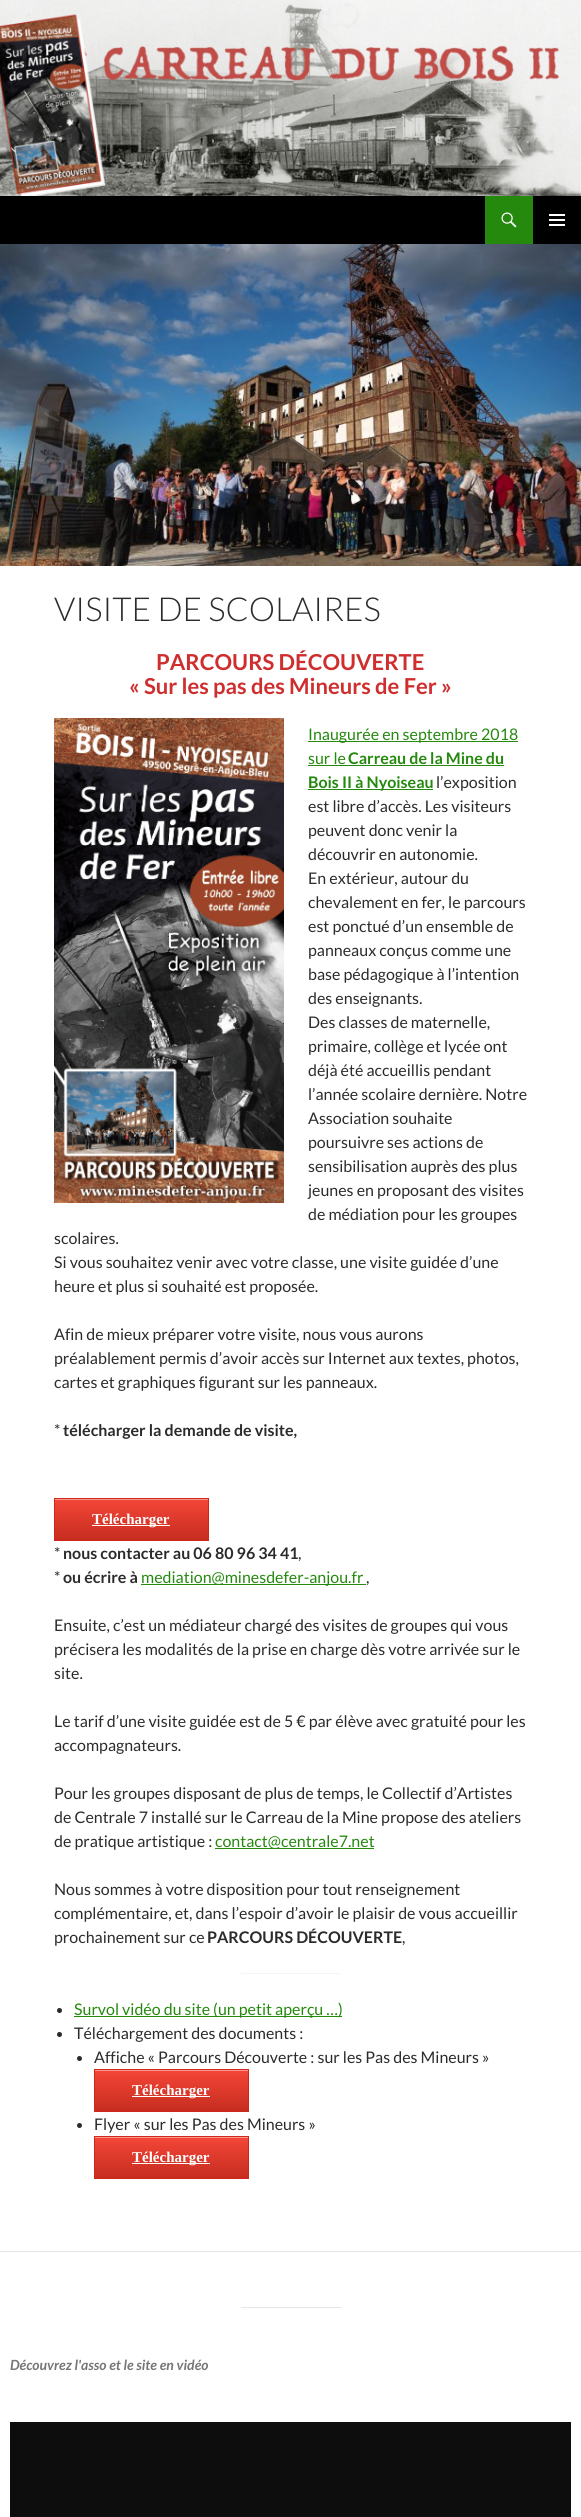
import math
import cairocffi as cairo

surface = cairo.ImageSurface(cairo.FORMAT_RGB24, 581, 2517)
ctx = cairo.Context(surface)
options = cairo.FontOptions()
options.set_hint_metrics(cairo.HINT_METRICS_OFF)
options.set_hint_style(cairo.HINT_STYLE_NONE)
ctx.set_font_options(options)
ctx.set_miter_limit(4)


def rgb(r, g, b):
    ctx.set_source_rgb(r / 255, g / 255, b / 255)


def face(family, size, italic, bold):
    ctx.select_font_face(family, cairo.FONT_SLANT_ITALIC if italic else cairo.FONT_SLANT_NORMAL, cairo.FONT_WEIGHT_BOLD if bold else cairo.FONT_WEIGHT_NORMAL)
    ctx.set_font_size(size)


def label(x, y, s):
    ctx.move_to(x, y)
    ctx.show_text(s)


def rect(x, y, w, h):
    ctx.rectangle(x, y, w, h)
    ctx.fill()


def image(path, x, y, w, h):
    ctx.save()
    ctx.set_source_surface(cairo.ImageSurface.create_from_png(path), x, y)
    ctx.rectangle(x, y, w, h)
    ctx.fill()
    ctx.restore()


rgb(255, 255, 255)
ctx.paint()
image('image0.png', 0, 0, 581, 196)
rgb(0, 0, 0)
rect(0, 196, 581, 48)
rgb(36, 137, 13)
rect(485, 196, 48, 48)
image('image1.png', 501, 212, 16, 16)
image('image2.png', 549, 214, 16, 12)
image('image3.png', 0, 244, 581, 322)
face('Lato Light', 33, 0, 0)
rgb(43, 43, 43)
label(54, 621, 'VISITE DE SCOLAIRES')
face('Lato', 22, 0, 1)
rgb(207, 46, 46)
label(156, 670, 'PARCOURS DÉCOUVERTE')
label(129, 694, '« Sur les pas des Mineurs de Fer »')
image('image4.png', 54, 718, 230, 485)
rgb(36, 137, 13)
rect(308, 741, 210, 1)
face('Lato', 16, 0, 0)
label(308, 740, 'Inaugurée en septembre 2018')
label(308, 764, 'sur le')
rect(308, 765, 196, 1)
face('Lato', 16, 0, 1)
label(348, 764, 'Carreau de la Mine du')
rect(308, 789, 125, 1)
label(308, 788, 'Bois II à Nyoiseau')
face('Lato', 16, 0, 0)
rgb(43, 43, 43)
label(436, 788, 'l’exposition')
label(308, 812, 'est libre d’accès. Les visiteurs')
label(308, 836, 'peuvent donc venir la')
label(308, 860, 'découvrir en autonomie.')
label(308, 884, 'En extérieur, autour du')
label(308, 908, 'chevalement en fer, le parcours')
label(308, 932, 'est ponctué d’un ensemble de')
label(308, 956, 'panneaux conçus comme une')
label(308, 980, 'base pédagogique à l’intention')
label(308, 1004, 'des enseignants.')
label(308, 1028, 'Des classes de maternelle,')
label(308, 1052, 'primaire, collège et lycée ont')
label(308, 1076, 'déjà été accueillis pendant')
label(308, 1100, 'l’année scolaire dernière. Notre')
label(308, 1124, 'Association souhaite')
label(308, 1148, 'poursuivre ses actions de')
label(308, 1172, 'sensibilisation auprès des plus')
label(308, 1196, 'jeunes en proposant des visites')
label(308, 1220, 'de médiation pour les groupes')
label(54, 1244, 'scolaires.')
label(54, 1268, 'Si vous souhaitez venir avec votre classe, une visite guidée d’une')
label(54, 1292, 'heure et plus si souhaité est proposée.')
label(54, 1340, 'Afin de mieux préparer votre visite, nous vous aurons')
label(54, 1364, 'préalablement permis d’avoir accès sur Internet aux textes, photos,')
label(54, 1388, 'cartes et graphiques figurant sur les panneaux.')
label(54, 1436, '*')
face('Lato', 16, 0, 1)
label(63, 1436, 'télécharger la demande de visite,')
gradient = cairo.LinearGradient(55, 1499, 55, 1540)
gradient.add_color_stop_rgba(0.05, 0.949, 0.271, 0.216, 1)
gradient.add_color_stop_rgba(1, 0.776, 0.176, 0.122, 1)
ctx.set_source(gradient)
rect(55, 1500, 153, 40)
rgb(245, 151, 142)
rect(55, 1499, 153, 1)
ctx.rectangle(54.5, 1498.5, 154, 42)
rgb(208, 39, 24)
ctx.set_line_width(1)
ctx.stroke()
rgb(255, 255, 255)
rect(92, 1525, 78, 1)
face('Liberation Serif', 15, 0, 1)
label(92, 1524, 'Télécharger')
face('Lato', 16, 0, 0)
rgb(43, 43, 43)
label(54, 1559, '*')
face('Lato', 16, 0, 1)
label(63, 1559, 'nous contacter au 06 80 96 34 41')
face('Lato', 16, 0, 0)
label(298, 1559, ',')
label(54, 1583, '*')
face('Lato', 16, 0, 1)
label(63, 1583, 'ou écrire à')
rgb(36, 137, 13)
rect(141, 1584, 225, 1)
face('Lato', 16, 0, 0)
label(141, 1583, 'mediation@minesdefer-anjou.fr')
rgb(43, 43, 43)
label(366, 1583, ',')
label(54, 1631, 'Ensuite, c’est un médiateur chargé des visites de groupes qui vous')
label(54, 1655, 'précisera les modalités de la prise en charge dès votre arrivée sur le')
label(54, 1679, 'site.')
label(54, 1727, 'Le tarif d’une visite guidée est de 5 € par élève avec gratuité pour les')
label(54, 1751, 'accompagnateurs.')
label(54, 1799, 'Pour les groupes disposant de plus de temps, le Collectif d’Artistes')
label(54, 1823, 'de Centrale 7 installé sur le Carreau de la Mine propose des ateliers')
label(54, 1847, 'de pratique artistique :')
rgb(36, 137, 13)
rect(215, 1848, 159, 1)
label(215, 1847, 'contact@centrale7.net')
rgb(43, 43, 43)
label(54, 1895, 'Nous sommes à votre disposition pour tout renseignement')
label(54, 1919, 'complémentaire, et, dans l’espoir d’avoir le plaisir de vous accueillir')
label(54, 1943, 'prochainement sur ce')
face('Lato', 16, 0, 1)
label(207, 1943, 'PARCOURS DÉCOUVERTE')
face('Lato', 16, 0, 0)
label(402, 1943, ',')
rgb(245, 245, 245)
rect(241, 1973, 100, 1)
rgb(43, 43, 43)
ctx.new_path()
ctx.arc(59.5, 2010.5, 2.5, 0, 2 * math.pi)
ctx.fill()
rgb(36, 137, 13)
rect(74, 2016, 268, 1)
label(74, 2015, 'Survol vidéo du site (un petit aperçu …)')
rgb(43, 43, 43)
ctx.new_path()
ctx.arc(59.5, 2034.5, 2.5, 0, 2 * math.pi)
ctx.fill()
label(74, 2039, 'Téléchargement des documents :')
ctx.new_path()
ctx.arc(79.5, 2058.5, 2.5, 0, 2 * math.pi)
ctx.fill()
label(94, 2063, 'Affiche « Parcours Découverte : sur les Pas des Mineurs »')
gradient = cairo.LinearGradient(95, 2070, 95, 2111)
gradient.add_color_stop_rgba(0.05, 0.949, 0.271, 0.216, 1)
gradient.add_color_stop_rgba(1, 0.776, 0.176, 0.122, 1)
ctx.set_source(gradient)
rect(95, 2071, 153, 40)
rgb(245, 151, 142)
rect(95, 2070, 153, 1)
ctx.rectangle(94.5, 2069.5, 154, 42)
rgb(208, 39, 24)
ctx.stroke()
rgb(255, 255, 255)
rect(132, 2096, 78, 1)
face('Liberation Serif', 15, 0, 1)
label(132, 2095, 'Télécharger')
rgb(43, 43, 43)
ctx.new_path()
ctx.arc(79.5, 2125.5, 2.5, 0, 2 * math.pi)
ctx.fill()
face('Lato', 16, 0, 0)
label(94, 2130, 'Flyer « sur les Pas des Mineurs »')
gradient = cairo.LinearGradient(95, 2137, 95, 2178)
gradient.add_color_stop_rgba(0.05, 0.949, 0.271, 0.216, 1)
gradient.add_color_stop_rgba(1, 0.776, 0.176, 0.122, 1)
ctx.set_source(gradient)
rect(95, 2138, 153, 40)
rgb(245, 151, 142)
rect(95, 2137, 153, 1)
ctx.rectangle(94.5, 2136.5, 154, 42)
rgb(208, 39, 24)
ctx.stroke()
rgb(255, 255, 255)
rect(132, 2163, 78, 1)
face('Liberation Serif', 15, 0, 1)
label(132, 2162, 'Télécharger')
rgb(230, 230, 230)
rect(0, 2251, 581, 1)
rect(241, 2307, 100, 1)
face('Lato', 14, 1, 1)
rgb(118, 118, 118)
label(10, 2370, 'Découvrez l\'asso et le site en vidéo')
rgb(13, 13, 13)
rect(10, 2422, 561, 95)
surface.write_to_png('render.png')
